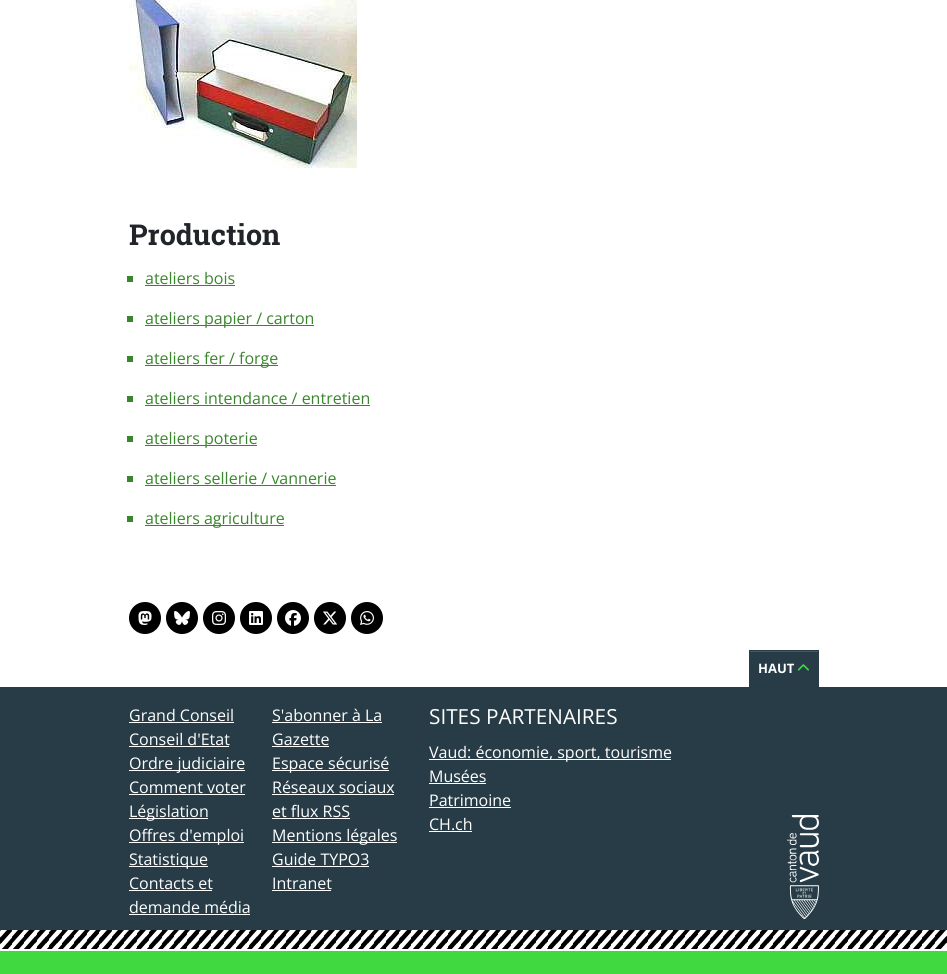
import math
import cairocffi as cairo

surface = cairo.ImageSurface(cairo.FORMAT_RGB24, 947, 974)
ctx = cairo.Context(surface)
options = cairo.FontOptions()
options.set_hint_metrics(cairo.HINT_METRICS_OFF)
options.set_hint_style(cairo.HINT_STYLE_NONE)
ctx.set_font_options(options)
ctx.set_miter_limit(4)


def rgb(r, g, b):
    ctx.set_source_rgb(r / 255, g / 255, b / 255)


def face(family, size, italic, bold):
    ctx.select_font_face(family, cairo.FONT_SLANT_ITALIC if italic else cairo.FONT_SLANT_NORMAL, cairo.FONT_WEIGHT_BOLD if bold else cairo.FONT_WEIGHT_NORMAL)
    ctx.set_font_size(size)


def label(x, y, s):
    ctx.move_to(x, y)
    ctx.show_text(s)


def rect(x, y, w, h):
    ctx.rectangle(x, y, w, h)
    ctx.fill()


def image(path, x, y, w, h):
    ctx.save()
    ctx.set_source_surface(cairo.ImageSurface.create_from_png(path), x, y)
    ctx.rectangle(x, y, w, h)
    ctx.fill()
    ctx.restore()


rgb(255, 255, 255)
ctx.paint()
image('image0.png', 129, 0, 228, 168)
face('Roboto Slab', 28.75, 0, 1)
rgb(33, 37, 41)
label(129, 245, 'Production')
rgb(58, 134, 45)
rect(127, 276, 6, 6)
face('Open Sans', 16, 0, 0)
label(145, 284, 'ateliers bois')
rect(145, 285, 90, 1)
rect(127, 316, 6, 6)
rect(145, 325, 169, 1)
label(145, 324, 'ateliers papier / carton')
rect(127, 356, 6, 6)
rect(145, 365, 133, 1)
label(145, 364, 'ateliers fer / forge')
rect(127, 396, 6, 6)
label(145, 404, 'ateliers intendance / entretien')
rect(145, 405, 225, 1)
rect(127, 436, 6, 6)
rect(145, 445, 112, 1)
label(145, 444, 'ateliers poterie')
rect(127, 476, 6, 6)
label(145, 484, 'ateliers sellerie / vannerie')
rect(145, 485, 191, 1)
rect(127, 516, 6, 6)
rect(145, 525, 139, 1)
label(145, 524, 'ateliers agriculture')
rgb(0, 0, 0)
ctx.new_path()
ctx.arc(145, 618, 16, 0, 2 * math.pi)
ctx.fill()
image('image1.png', 138, 611, 14, 14)
ctx.arc(182, 618, 16, 0, 2 * math.pi)
ctx.fill()
image('image2.png', 174, 611, 16, 14)
ctx.arc(219, 618, 16, 0, 2 * math.pi)
ctx.fill()
image('image3.png', 212, 611, 14, 14)
ctx.arc(256, 618, 16, 0, 2 * math.pi)
ctx.fill()
image('image4.png', 249, 611, 14, 14)
ctx.arc(293, 618, 16, 0, 2 * math.pi)
ctx.fill()
image('image5.png', 285, 610, 16, 16)
ctx.arc(330, 618, 16, 0, 2 * math.pi)
ctx.fill()
image('image6.png', 323, 611, 15, 14)
ctx.arc(367, 618, 16, 0, 2 * math.pi)
ctx.fill()
image('image7.png', 360, 611, 14, 14)
rgb(39, 60, 70)
rect(749, 650, 70, 37)
rgb(71, 89, 98)
rect(750, 651, 68, 1)
face('Open Sans', 13, 0, 1)
rgb(255, 255, 255)
label(758, 673, 'HAUT')
image('image8.png', 797, 664, 12, 7)
rgb(39, 60, 70)
rect(0, 687, 947, 243)
image('image9.png', 0, 930, 947, 19)
rgb(64, 217, 64)
rect(0, 951, 947, 23)
face('Open Sans', 16, 0, 0)
rgb(255, 255, 255)
label(129, 721, 'Grand Conseil')
rect(129, 722, 105, 1)
label(272, 721, 'S\'abonner à La')
rect(272, 722, 110, 1)
label(272, 745, 'Gazette')
rect(272, 746, 57, 1)
label(129, 745, 'Conseil d\'Etat')
rect(129, 746, 100, 1)
rect(129, 770, 116, 1)
label(129, 769, 'Ordre judiciaire')
rect(272, 770, 117, 1)
label(272, 769, 'Espace sécurisé')
label(129, 793, 'Comment voter')
rect(129, 794, 116, 1)
label(272, 793, 'Réseaux sociaux')
rect(272, 794, 122, 1)
label(272, 817, 'et flux RSS')
rect(272, 818, 78, 1)
rect(129, 818, 79, 1)
label(129, 817, 'Législation')
rect(129, 842, 115, 1)
label(129, 841, 'Offres d\'emploi')
rect(272, 842, 125, 1)
label(272, 841, 'Mentions légales')
rect(129, 866, 79, 1)
label(129, 865, 'Statistique')
label(272, 865, 'Guide TYPO3')
rect(272, 866, 97, 1)
label(129, 889, 'Contacts et')
rect(129, 890, 83, 1)
label(129, 913, 'demande média')
rect(129, 914, 121, 1)
label(272, 889, 'Intranet')
rect(272, 890, 59, 1)
face('Open Sans', 20.75, 0, 0)
label(429, 724, 'SITES PARTENAIRES')
rect(429, 759, 242, 1)
face('Open Sans', 16, 0, 0)
label(429, 758, 'Vaud: économie, sport, tourisme')
label(429, 782, 'Musées')
rect(429, 783, 57, 1)
label(429, 806, 'Patrimoine')
rect(429, 807, 82, 1)
label(429, 830, 'CH.ch')
rect(429, 831, 43, 1)
image('image10.png', 787, 815, 32, 104)
surface.write_to_png('render.png')
